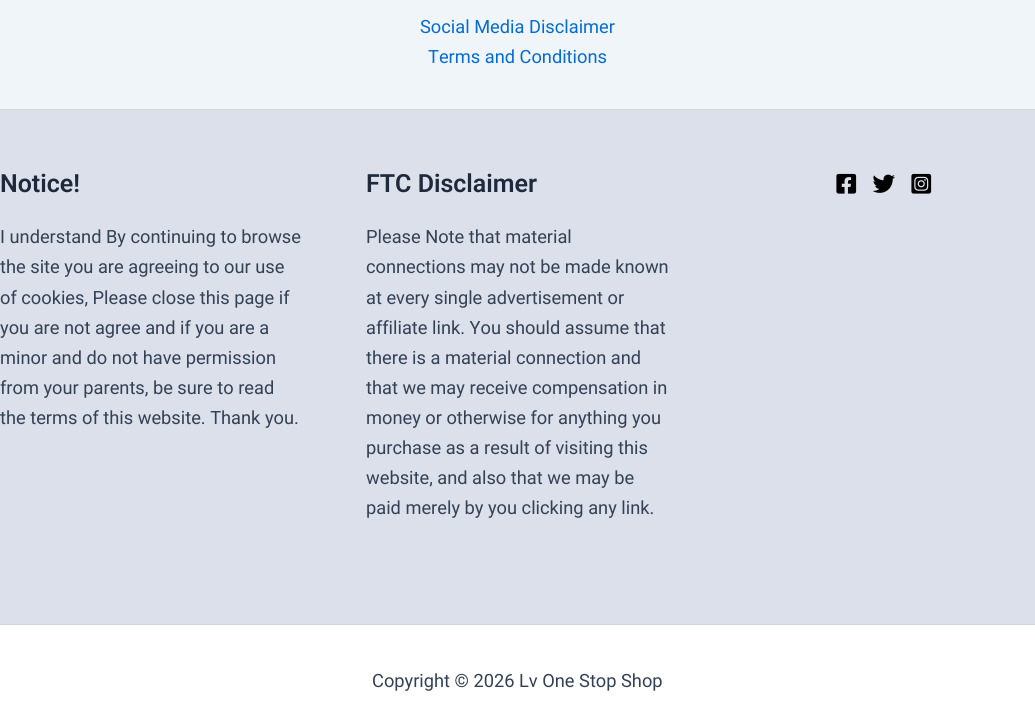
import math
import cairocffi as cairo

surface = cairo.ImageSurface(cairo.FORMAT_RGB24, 1035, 716)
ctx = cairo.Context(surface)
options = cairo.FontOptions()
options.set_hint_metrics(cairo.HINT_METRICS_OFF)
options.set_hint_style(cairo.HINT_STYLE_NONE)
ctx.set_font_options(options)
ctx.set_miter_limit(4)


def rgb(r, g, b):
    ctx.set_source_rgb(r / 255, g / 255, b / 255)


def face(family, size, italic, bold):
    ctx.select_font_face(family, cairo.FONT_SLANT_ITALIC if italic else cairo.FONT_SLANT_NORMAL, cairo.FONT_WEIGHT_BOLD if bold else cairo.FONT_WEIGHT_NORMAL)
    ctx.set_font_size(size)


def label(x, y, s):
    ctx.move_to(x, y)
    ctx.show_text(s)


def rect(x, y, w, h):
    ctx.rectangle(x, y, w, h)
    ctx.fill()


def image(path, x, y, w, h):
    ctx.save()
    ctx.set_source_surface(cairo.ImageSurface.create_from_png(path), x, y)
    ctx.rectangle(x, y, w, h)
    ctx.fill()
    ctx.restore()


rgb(240, 245, 250)
ctx.paint()
face('Roboto', 18.25, 0, 0)
rgb(4, 107, 210)
label(420, 33, 'Social Media Disclaimer')
label(428, 63, 'Terms and Conditions')
rgb(219, 224, 234)
rect(0, 110, 1035, 514)
rgb(209, 213, 219)
rect(0, 109, 1035, 1)
face('Roboto SemiBold', 25, 0, 0)
rgb(30, 41, 59)
label(0, 192, 'Notice!')
face('Roboto', 18.25, 0, 0)
rgb(51, 65, 85)
label(0, 243, 'I understand By continuing to browse')
label(0, 273, 'the site you are agreeing to our use')
label(0, 304, 'of cookies, Please close this page if')
label(0, 334, 'you are not agree and if you are a')
label(0, 364, 'minor and do not have permission')
label(0, 394, 'from your parents, be sure to read')
label(0, 424, 'the terms of this website. Thank you.')
face('Roboto SemiBold', 25, 0, 0)
rgb(30, 41, 59)
label(366, 192, 'FTC Disclaimer')
face('Roboto', 18.25, 0, 0)
rgb(51, 65, 85)
label(366, 243, 'Please Note that material')
label(366, 273, 'connections may not be made known')
label(366, 304, 'at every single advertisement or')
label(366, 334, 'affiliate link. You should assume that')
label(366, 364, 'there is a material connection and')
label(366, 394, 'that we may receive compensation in')
label(366, 424, 'money or otherwise for anything you')
label(366, 454, 'purchase as a result of visiting this')
label(366, 484, 'website, and also that we may be')
label(366, 514, 'paid merely by you clicking any link.')
image('image0.png', 836, 173, 21, 21)
image('image1.png', 873, 174, 22, 19)
image('image2.png', 911, 173, 21, 21)
rgb(255, 255, 255)
rect(0, 625, 1035, 91)
rgb(209, 213, 219)
rect(0, 624, 1035, 1)
rgb(51, 65, 85)
label(372, 687, 'Copyright © 2026 Lv One Stop Shop')
surface.write_to_png('render.png')
